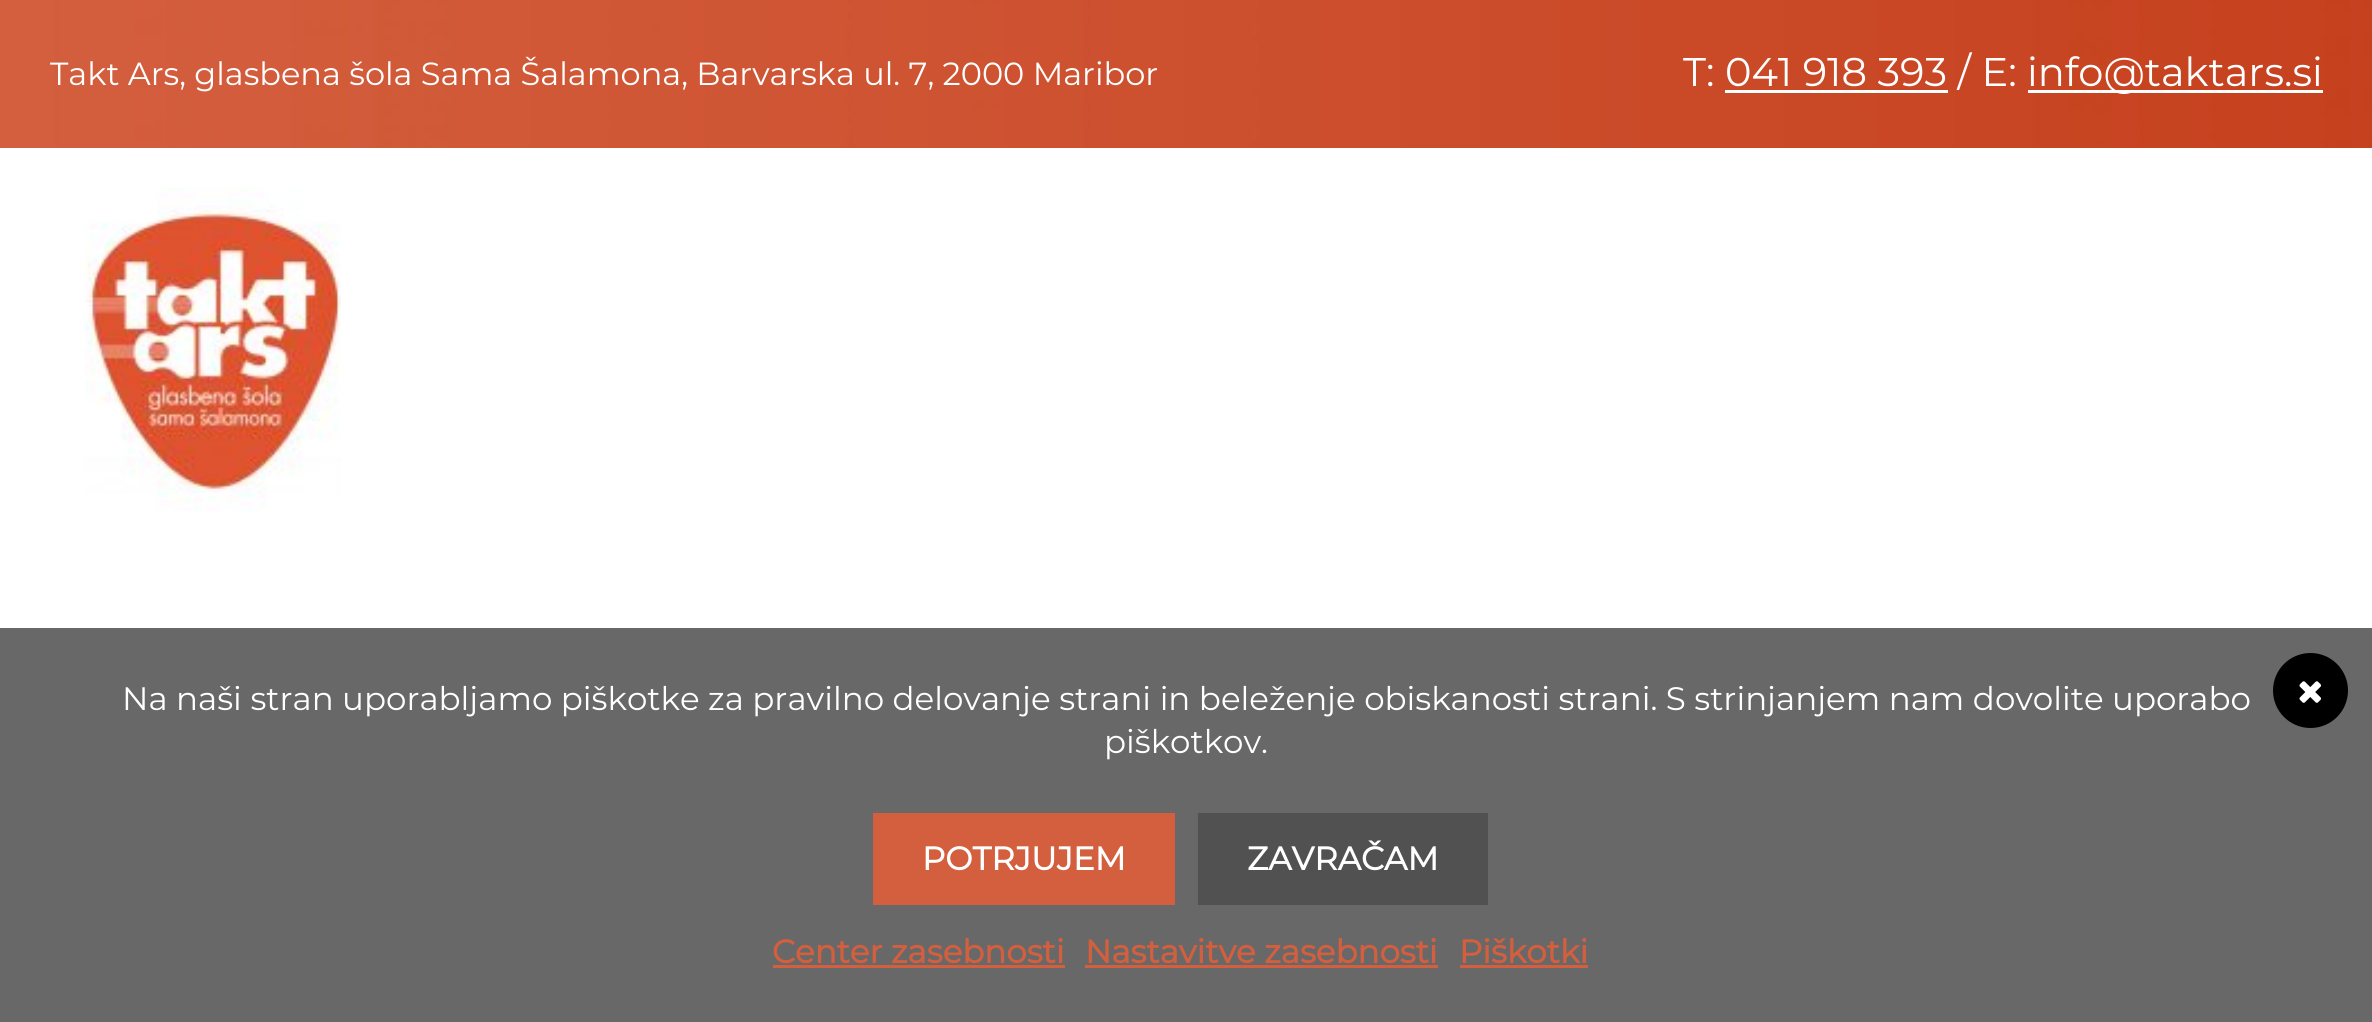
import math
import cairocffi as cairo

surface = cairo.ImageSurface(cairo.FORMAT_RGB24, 2372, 1022)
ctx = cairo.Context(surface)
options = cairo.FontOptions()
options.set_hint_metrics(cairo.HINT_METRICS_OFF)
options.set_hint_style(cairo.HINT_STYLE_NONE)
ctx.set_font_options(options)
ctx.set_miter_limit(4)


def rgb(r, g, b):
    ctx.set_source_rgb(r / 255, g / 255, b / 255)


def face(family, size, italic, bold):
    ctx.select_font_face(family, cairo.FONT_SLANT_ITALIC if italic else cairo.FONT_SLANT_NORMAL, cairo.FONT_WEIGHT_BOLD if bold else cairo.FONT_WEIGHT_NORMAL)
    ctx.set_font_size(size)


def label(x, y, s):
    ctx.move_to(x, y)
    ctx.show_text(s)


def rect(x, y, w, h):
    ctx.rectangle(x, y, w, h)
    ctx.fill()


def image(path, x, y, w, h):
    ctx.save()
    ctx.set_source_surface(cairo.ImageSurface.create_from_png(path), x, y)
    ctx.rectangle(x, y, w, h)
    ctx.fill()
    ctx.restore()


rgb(255, 255, 255)
ctx.paint()
image('image0.png', 0, 0, 2372, 148)
face('Montserrat Thin', 32, 0, 0)
rgb(255, 255, 255)
label(50, 85, 'Takt Ars, glasbena šola Sama Šalamona, Barvarska ul. 7, 2000 Maribor')
face('Montserrat Thin', 40, 0, 0)
label(1683, 86, 'T: 041 918 393 / E:')
rect(2028, 90, 295, 3)
label(2027, 86, 'info@taktars.si')
rect(1725, 90, 223, 3)
image('image1.png', 84, 187, 257, 325)
rgb(104, 104, 104)
rect(0, 628, 2372, 394)
face('Montserrat Thin', 32.5, 0, 0)
rgb(255, 255, 255)
label(122, 710, 'Na naši stran uporabljamo piškotke za pravilno delovanje strani in beleženje obiskanosti strani. S strinjanjem nam dovolite uporabo')
label(1104, 753, 'piškotkov.')
rgb(0, 0, 0)
ctx.new_path()
ctx.arc(2310.5, 690.5, 37.5, 0, 2 * math.pi)
ctx.fill()
image('image2.png', 2299, 681, 22, 22)
rgb(211, 95, 62)
rect(873, 813, 302, 92)
face('Montserrat', 32.5, 0, 1)
rgb(255, 255, 255)
label(922, 870, 'POTRJUJEM')
rgb(81, 81, 81)
rect(1198, 813, 290, 92)
rgb(255, 255, 255)
label(1247, 870, 'ZAVRAČAM')
rgb(211, 95, 62)
label(772, 963, 'Center zasebnosti')
rect(773, 965, 292, 3)
label(1085, 963, 'Nastavitve zasebnosti')
rect(1085, 965, 353, 3)
label(1459, 963, 'Piškotki')
rect(1460, 965, 128, 3)
surface.write_to_png('render.png')
